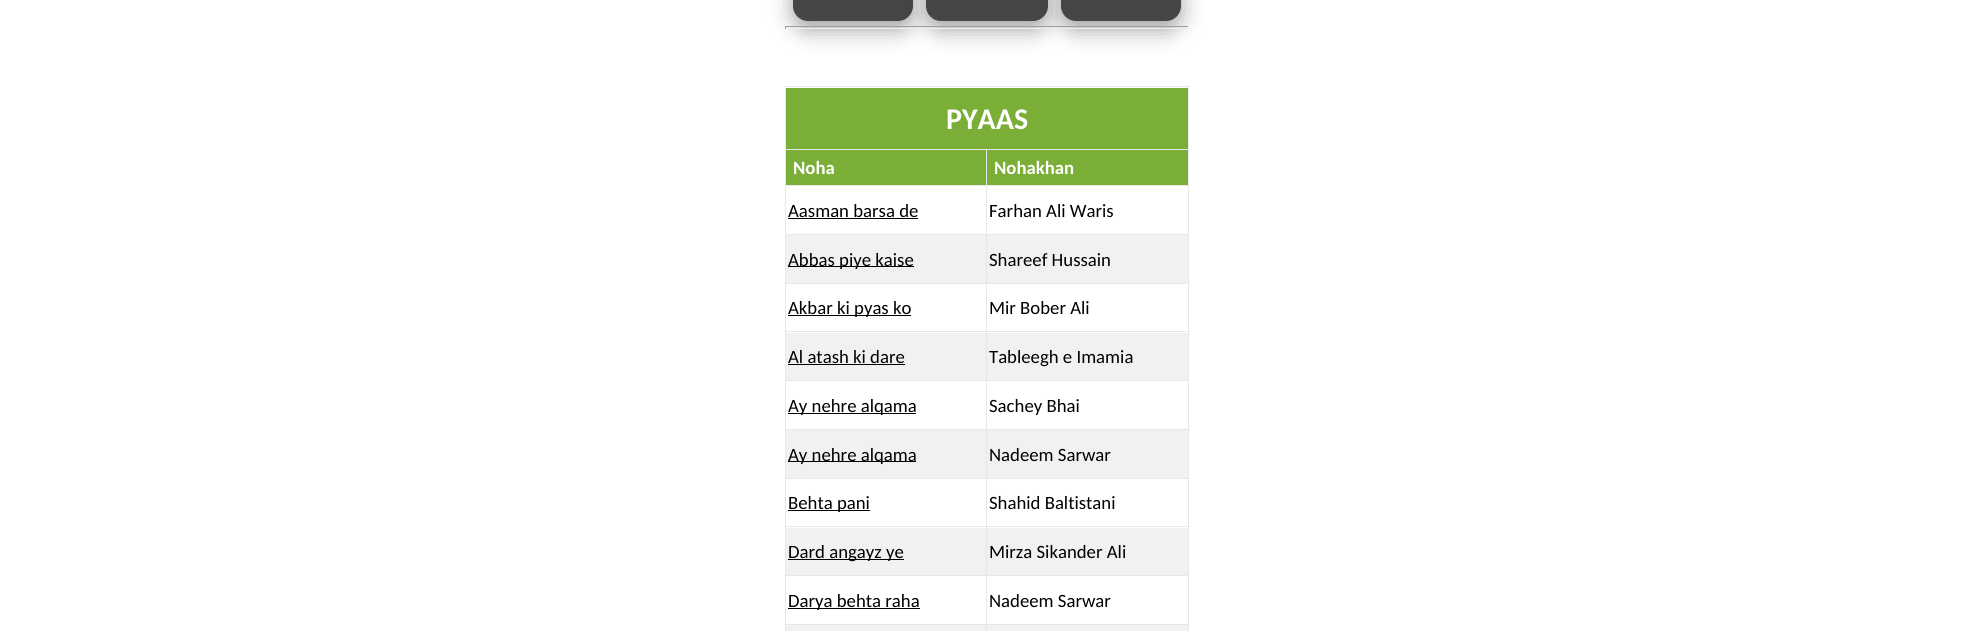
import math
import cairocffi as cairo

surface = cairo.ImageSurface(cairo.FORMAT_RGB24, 1973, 631)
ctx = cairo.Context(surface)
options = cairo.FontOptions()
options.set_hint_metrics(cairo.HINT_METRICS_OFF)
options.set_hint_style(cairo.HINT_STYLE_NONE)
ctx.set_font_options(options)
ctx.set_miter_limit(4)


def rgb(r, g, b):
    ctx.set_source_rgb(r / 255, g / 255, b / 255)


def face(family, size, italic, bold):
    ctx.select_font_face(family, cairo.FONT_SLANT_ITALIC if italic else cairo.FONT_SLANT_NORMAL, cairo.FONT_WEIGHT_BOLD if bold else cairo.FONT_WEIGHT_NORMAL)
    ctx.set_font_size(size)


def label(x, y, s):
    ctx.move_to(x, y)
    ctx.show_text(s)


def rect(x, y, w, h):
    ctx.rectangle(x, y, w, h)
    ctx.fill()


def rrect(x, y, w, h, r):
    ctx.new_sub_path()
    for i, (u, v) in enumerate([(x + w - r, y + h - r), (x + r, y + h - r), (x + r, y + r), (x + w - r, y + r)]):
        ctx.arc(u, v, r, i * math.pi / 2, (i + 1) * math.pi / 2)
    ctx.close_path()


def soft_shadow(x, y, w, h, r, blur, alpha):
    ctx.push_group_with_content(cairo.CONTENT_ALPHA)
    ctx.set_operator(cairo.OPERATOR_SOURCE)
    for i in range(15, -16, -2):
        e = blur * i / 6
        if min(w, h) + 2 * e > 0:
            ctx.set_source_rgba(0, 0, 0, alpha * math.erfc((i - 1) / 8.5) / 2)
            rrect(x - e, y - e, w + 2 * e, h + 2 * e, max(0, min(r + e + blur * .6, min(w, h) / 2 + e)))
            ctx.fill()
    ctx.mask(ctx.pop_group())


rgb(255, 255, 255)
ctx.paint()
rgb(0, 0, 0)
soft_shadow(793, -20, 120, 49, 15, 12.5, 0.19)
soft_shadow(793, -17, 120, 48, 15, 10, 0.2)
rgb(70, 70, 70)
rrect(793, -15, 120, 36, 15)
ctx.fill()
rgb(0, 0, 0)
soft_shadow(926, -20, 122, 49, 15, 12.5, 0.19)
soft_shadow(926, -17, 122, 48, 15, 10, 0.2)
rgb(70, 70, 70)
rrect(926, -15, 122, 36, 15)
ctx.fill()
rgb(0, 0, 0)
soft_shadow(1061, -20, 120, 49, 15, 12.5, 0.19)
soft_shadow(1061, -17, 120, 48, 15, 10, 0.2)
rgb(70, 70, 70)
rrect(1061, -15, 120, 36, 15)
ctx.fill()
rgb(159, 159, 159)
rect(785, 26, 404, 1)
rgb(238, 238, 238)
rect(1188, 26, 1, 3)
rect(785, 28, 404, 1)
rgb(159, 159, 159)
rect(785, 26, 1, 3)
rgb(231, 231, 231)
rect(785, 86, 404, 1)
rect(1188, 86, 1, 545)
rect(785, 86, 1, 545)
rgb(123, 174, 55)
rect(786, 88, 402, 61)
face('Carlito', 30, 0, 1)
rgb(255, 255, 255)
label(946, 129, 'PYAAS')
rgb(123, 174, 55)
rect(786, 150, 402, 35)
rgb(231, 231, 231)
rect(986, 149, 203, 1)
rect(986, 185, 203, 1)
rect(986, 234, 203, 1)
rgb(241, 241, 241)
rect(786, 235, 402, 48)
rgb(231, 231, 231)
rect(986, 283, 203, 1)
rect(986, 331, 203, 1)
rgb(241, 241, 241)
rect(786, 333, 402, 47)
rgb(231, 231, 231)
rect(986, 380, 203, 1)
rect(986, 429, 203, 1)
rgb(241, 241, 241)
rect(786, 430, 402, 48)
rgb(231, 231, 231)
rect(986, 478, 203, 1)
rect(986, 526, 203, 1)
rgb(241, 241, 241)
rect(786, 528, 402, 47)
rgb(231, 231, 231)
rect(986, 575, 203, 1)
rect(986, 624, 203, 1)
rgb(241, 241, 241)
rect(786, 625, 402, 6)
rgb(231, 231, 231)
rect(986, 624, 1, 7)
rect(785, 624, 203, 1)
rect(986, 575, 1, 50)
rect(785, 575, 203, 1)
rect(986, 526, 1, 50)
rect(785, 526, 203, 1)
rect(986, 478, 1, 50)
rect(785, 478, 203, 1)
rect(986, 429, 1, 50)
rect(785, 429, 203, 1)
rect(986, 380, 1, 50)
rect(785, 380, 203, 1)
rect(986, 331, 1, 50)
rect(785, 331, 203, 1)
rect(986, 283, 1, 50)
rect(785, 283, 203, 1)
rect(986, 234, 1, 50)
rect(785, 234, 203, 1)
rect(986, 185, 1, 50)
rect(785, 185, 203, 1)
rect(986, 149, 1, 37)
rect(785, 149, 203, 1)
face('Carlito', 18.75, 0, 1)
rgb(255, 255, 255)
label(793, 174, 'Noha')
label(994, 174, 'Nohakhan')
face('Carlito', 18.75, 0, 0)
rgb(0, 0, 0)
label(788, 217, 'Aasman barsa de')
rect(788, 218, 130, 1)
label(989, 217, 'Farhan Ali Waris')
rect(788, 266, 126, 1)
label(788, 266, 'Abbas piye kaise')
label(989, 266, 'Shareef Hussain')
rect(788, 315, 123, 1)
label(788, 314, 'Akbar ki pyas ko')
label(989, 314, 'Mir Bober Ali')
label(788, 363, 'Al atash ki dare')
rect(788, 364, 117, 1)
label(989, 363, 'Tableegh e Imamia')
rect(788, 413, 128, 1)
label(788, 412, 'Ay nehre alqama')
label(989, 412, 'Sachey Bhai')
rect(788, 461, 128, 1)
label(788, 461, 'Ay nehre alqama')
label(989, 461, 'Nadeem Sarwar')
rect(788, 510, 82, 1)
label(788, 509, 'Behta pani')
label(989, 509, 'Shahid Baltistani')
rect(788, 559, 116, 1)
label(788, 558, 'Dard angayz ye')
label(989, 558, 'Mirza Sikander Ali')
rect(788, 608, 132, 1)
label(788, 607, 'Darya behta raha')
label(989, 607, 'Nadeem Sarwar')
surface.write_to_png('render.png')
